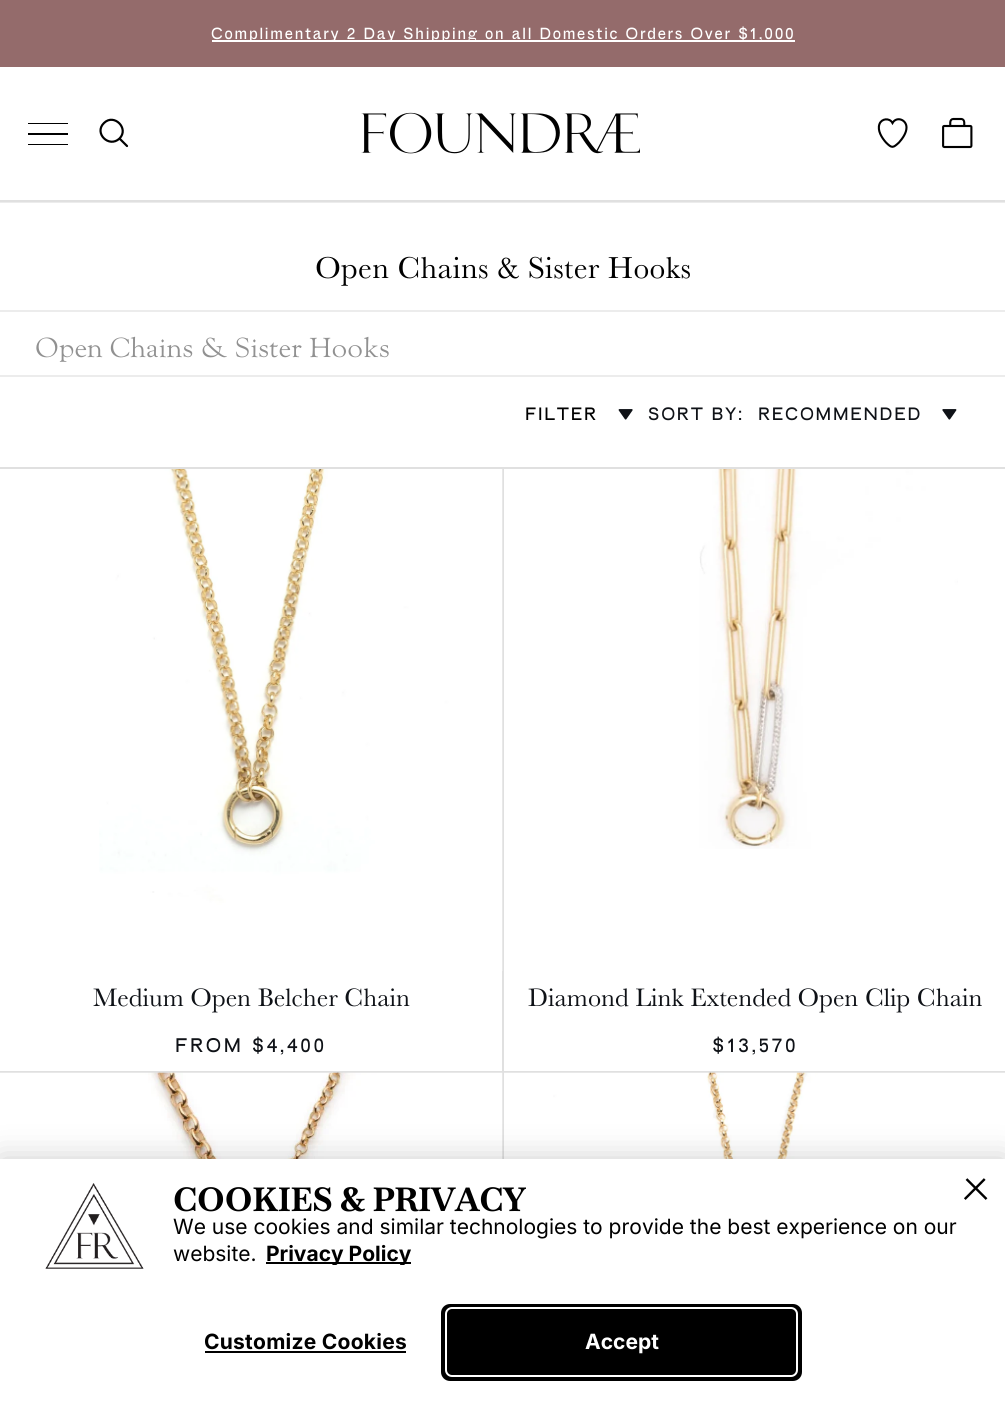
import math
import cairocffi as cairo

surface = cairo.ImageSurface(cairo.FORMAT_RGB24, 1005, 1404)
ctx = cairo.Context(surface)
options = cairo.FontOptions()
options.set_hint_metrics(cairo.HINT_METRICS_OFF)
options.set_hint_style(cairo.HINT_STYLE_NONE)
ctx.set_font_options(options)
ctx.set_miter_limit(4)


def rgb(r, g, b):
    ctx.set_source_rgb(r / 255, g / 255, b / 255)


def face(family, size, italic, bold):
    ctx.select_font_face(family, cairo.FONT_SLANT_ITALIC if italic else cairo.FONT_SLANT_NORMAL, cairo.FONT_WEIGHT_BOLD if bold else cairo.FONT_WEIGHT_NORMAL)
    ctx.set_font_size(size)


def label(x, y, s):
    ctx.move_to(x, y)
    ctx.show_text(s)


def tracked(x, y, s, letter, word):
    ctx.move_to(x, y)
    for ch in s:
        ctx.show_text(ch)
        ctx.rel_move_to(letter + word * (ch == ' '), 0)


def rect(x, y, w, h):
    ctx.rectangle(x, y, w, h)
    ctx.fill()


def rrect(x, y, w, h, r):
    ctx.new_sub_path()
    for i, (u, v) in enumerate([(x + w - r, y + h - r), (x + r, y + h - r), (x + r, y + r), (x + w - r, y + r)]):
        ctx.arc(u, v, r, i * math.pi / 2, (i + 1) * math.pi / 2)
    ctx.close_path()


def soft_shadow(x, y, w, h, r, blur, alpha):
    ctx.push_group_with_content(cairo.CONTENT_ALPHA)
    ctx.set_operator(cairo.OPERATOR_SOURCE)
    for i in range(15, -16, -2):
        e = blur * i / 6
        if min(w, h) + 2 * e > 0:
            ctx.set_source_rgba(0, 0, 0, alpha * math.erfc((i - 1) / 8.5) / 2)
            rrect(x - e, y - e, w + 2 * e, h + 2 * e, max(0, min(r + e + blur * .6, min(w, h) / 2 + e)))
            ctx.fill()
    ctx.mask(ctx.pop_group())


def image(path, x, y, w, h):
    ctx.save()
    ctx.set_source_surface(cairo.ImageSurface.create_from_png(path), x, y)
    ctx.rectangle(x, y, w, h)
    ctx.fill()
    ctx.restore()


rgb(255, 255, 255)
ctx.paint()
rgb(148, 107, 107)
rect(0, 0, 1005, 67)
rgb(255, 255, 255)
rect(212, 40, 583, 2)
face('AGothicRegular', 15.75, 0, 0)
tracked(211, 39, 'Complimentary 2 Day Shipping on all Domestic Orders Over $1,000', 1.75, 0)
rgb(224, 224, 224)
rect(0, 200, 1005, 2)
rgb(0, 0, 0)
rect(28, 123, 40, 1)
rect(28, 133, 40, 2)
rect(28, 144, 40, 1)
ctx.new_path()
ctx.move_to(127, 146)
ctx.line_to(119.5, 138.5)
ctx.move_to(119.5, 138.5)
ctx.curve_to(129.5, 128.5, 114, 113, 104, 123)
ctx.curve_to(93.5, 133, 109, 148.5, 119.5, 138.5)
ctx.close_path()
ctx.set_line_width(2.2)
ctx.set_line_cap(cairo.LINE_CAP_ROUND)
ctx.set_line_join(cairo.LINE_JOIN_ROUND)
ctx.stroke()
image('image0.png', 361, 112, 279, 42)
ctx.new_path()
ctx.move_to(906.5, 127.5)
ctx.curve_to(906.5, 133, 902.5, 138.5, 899, 142.5)
ctx.curve_to(893, 148, 892, 148.5, 886, 142.5)
ctx.curve_to(882, 138, 877, 130.5, 879.5, 124)
ctx.curve_to(881.5, 118.5, 889.5, 117.5, 892.5, 123)
ctx.curve_to(896.5, 116, 906.5, 119.5, 906.5, 127.5)
ctx.close_path()
ctx.set_line_width(2.1)
ctx.set_line_cap(cairo.LINE_CAP_BUTT)
ctx.set_line_join(cairo.LINE_JOIN_MITER)
ctx.stroke()
image('image1.png', 942, 117, 31, 32)
rgb(236, 236, 236)
rect(0, 202, 1005, 1)
face('Baskerville', 31.5, 0, 0)
rgb(0, 0, 0)
tracked(315, 278, 'Open Chains & Sister Hooks', 0.35, 0)
rgb(236, 236, 236)
rect(0, 310, 1005, 2)
face('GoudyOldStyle', 28, 0, 0)
rgb(145, 145, 145)
label(35, 357, 'Open Chains & Sister Hooks')
rgb(236, 236, 236)
rect(0, 375, 1005, 2)
face('AGothicRegular', 17.5, 0, 0)
rgb(0, 0, 0)
tracked(525, 420, 'FILTER', 1.75, 0)
image('image2.png', 618, 409, 15, 11)
rgb(15, 18, 23)
tracked(648, 420, 'SORT BY:', 1.75, 0)
tracked(758, 420, 'RECOMMENDED', 1.75, 0)
image('image3.png', 942, 409, 15, 11)
rgb(224, 224, 224)
rect(0, 467, 1005, 2)
rect(0, 1071, 1005, 2)
rect(502, 469, 2, 690)
image('image4.png', 99, 469, 404, 502)
face('Baskerville', 26.25, 0, 0)
rgb(15, 18, 23)
label(93, 1006, 'Medium Open Belcher Chain')
face('AGothicRegular', 19.25, 0, 0)
tracked(175, 1052, 'FROM $4,400', 2.6, 0)
image('image5.png', 699, 469, 259, 380)
face('Baskerville', 26.25, 0, 0)
label(528, 1006, 'Diamond Link Extended Open Clip Chain')
face('AGothicRegular', 19.25, 0, 0)
tracked(712, 1052, '$13,570', 2.6, 0)
image('image6.png', 0, 1072, 503, 87)
image('image7.png', 504, 1072, 501, 87)
rgb(0, 0, 0)
soft_shadow(0, 1159, 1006, 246, 0, 16, 0.2)
rgb(255, 255, 255)
rect(0, 1159, 1005, 245)
image('image8.png', 45, 1183, 99, 86)
face('Baskervville', 33, 0, 1)
rgb(0, 0, 0)
label(173, 1211, 'COOKIES & PRIVACY')
face('Inter', 21, 0, 0)
label(173, 1234, 'We use cookies and similar technologies to provide the best experience on our')
label(173, 1261, 'website.')
rect(266, 1262, 145, 2)
ctx.save()
ctx.rectangle(173, 1187, 788, 78)
ctx.clip()
face('Inter', 21, 0, 1)
label(266, 1261, 'Privacy Policy')
ctx.restore()
face('Inter', 21, 0, 1)
tracked(204, 1349, 'Customize Cookies', 0.25, 0)
rect(205, 1351, 201, 2)
rrect(441, 1304, 361, 77, 9)
ctx.fill()
rrect(446, 1308, 351, 68, 6)
rgb(255, 255, 255)
ctx.set_line_width(2)
ctx.stroke()
label(585, 1349, 'Accept')
image('image9.png', 964, 1178, 24, 22)
surface.write_to_png('render.png')
